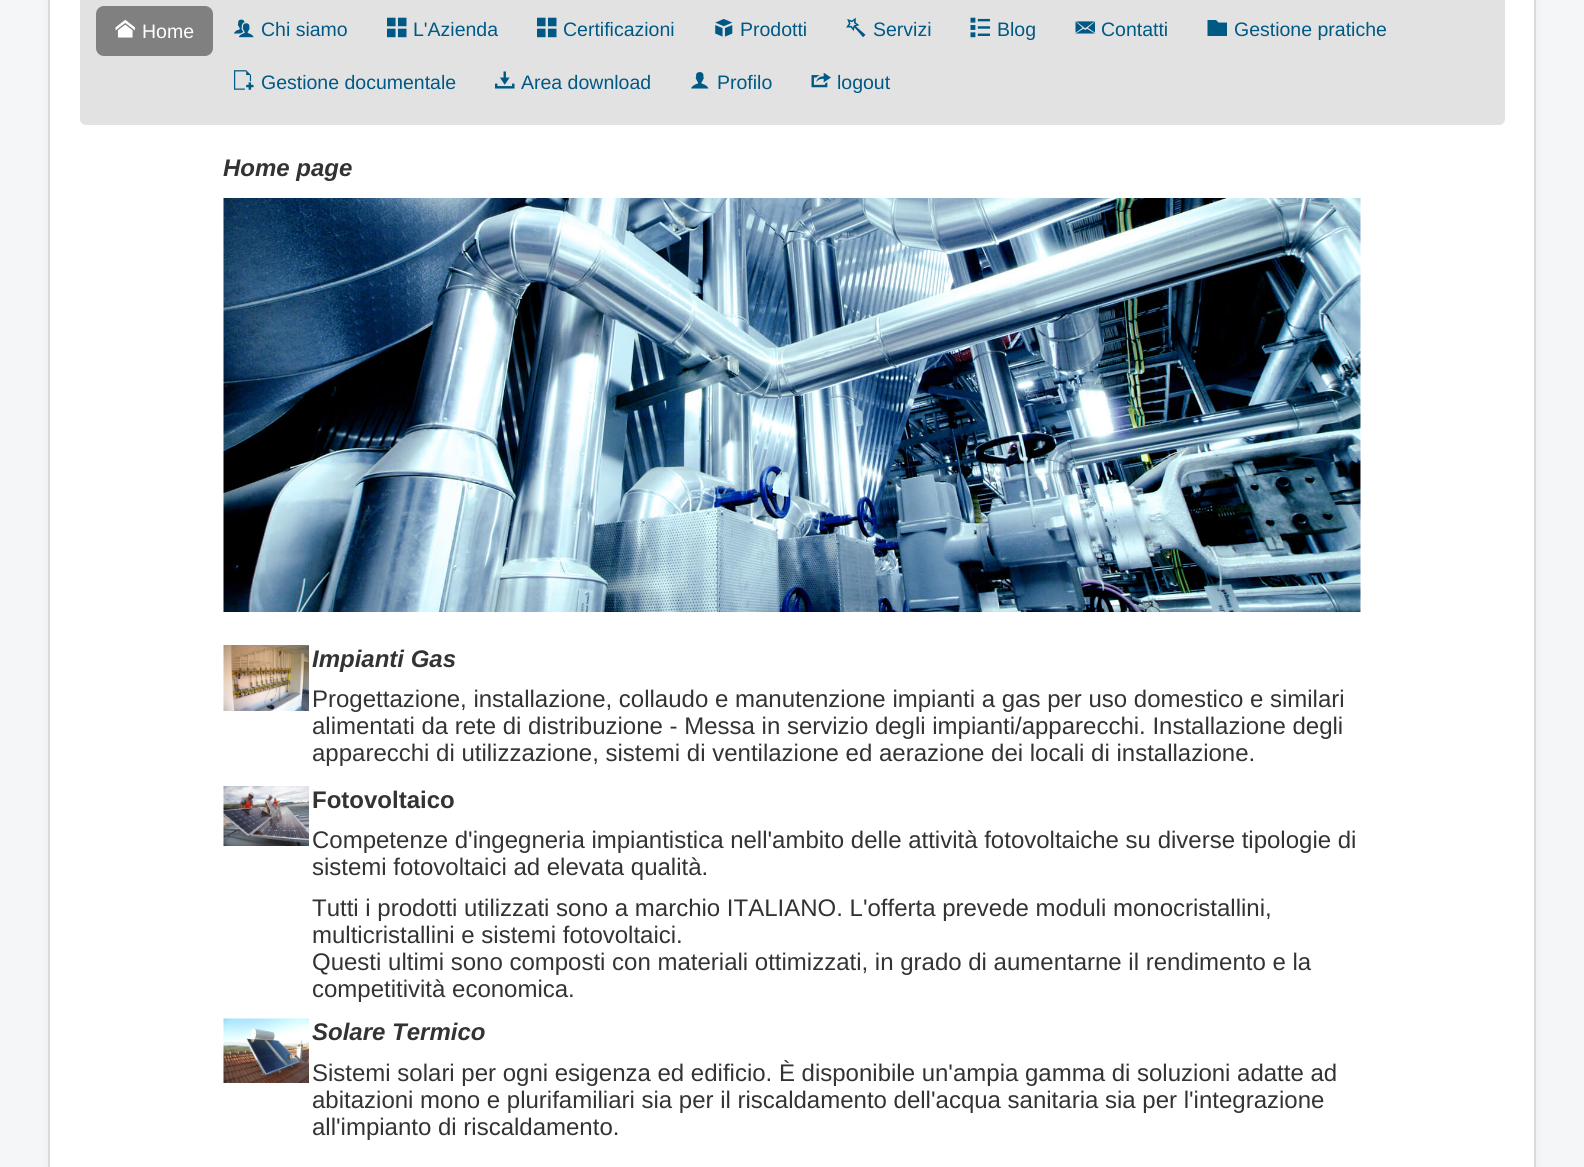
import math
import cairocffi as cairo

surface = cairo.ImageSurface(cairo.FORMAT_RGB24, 1584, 1167)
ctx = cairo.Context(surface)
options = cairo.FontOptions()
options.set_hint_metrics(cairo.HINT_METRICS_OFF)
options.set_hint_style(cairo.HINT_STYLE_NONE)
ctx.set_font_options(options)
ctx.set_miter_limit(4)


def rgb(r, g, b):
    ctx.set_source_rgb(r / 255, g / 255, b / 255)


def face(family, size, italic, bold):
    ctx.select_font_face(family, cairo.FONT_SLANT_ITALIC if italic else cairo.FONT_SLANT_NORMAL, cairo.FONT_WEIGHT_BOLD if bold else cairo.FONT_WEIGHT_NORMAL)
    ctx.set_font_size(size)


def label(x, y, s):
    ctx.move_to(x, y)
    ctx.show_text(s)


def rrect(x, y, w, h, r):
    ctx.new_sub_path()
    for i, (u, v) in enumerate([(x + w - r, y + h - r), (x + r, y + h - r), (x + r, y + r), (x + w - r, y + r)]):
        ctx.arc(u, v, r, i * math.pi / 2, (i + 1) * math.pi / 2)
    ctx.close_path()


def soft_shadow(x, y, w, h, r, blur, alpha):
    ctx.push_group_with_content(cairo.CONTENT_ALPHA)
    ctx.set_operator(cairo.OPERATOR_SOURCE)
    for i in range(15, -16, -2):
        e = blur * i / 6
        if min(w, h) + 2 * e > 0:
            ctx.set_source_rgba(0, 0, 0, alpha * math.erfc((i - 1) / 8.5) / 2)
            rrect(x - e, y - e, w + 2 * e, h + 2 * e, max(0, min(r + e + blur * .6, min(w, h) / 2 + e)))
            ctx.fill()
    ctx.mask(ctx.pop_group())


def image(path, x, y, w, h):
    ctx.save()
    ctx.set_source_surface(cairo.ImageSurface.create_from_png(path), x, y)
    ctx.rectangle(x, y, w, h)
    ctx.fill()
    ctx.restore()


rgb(244, 246, 247)
ctx.paint()
rgb(0, 0, 0)
soft_shadow(48, -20, 1488, 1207, 6, 4.5, 0.05)
rgb(255, 255, 255)
ctx.rectangle(49, -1, 1486, 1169)
ctx.fill_preserve()
rgb(217, 217, 217)
ctx.stroke()
rgb(226, 226, 226)
rrect(81, -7, 1423, 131, 5)
ctx.fill_preserve()
ctx.stroke()
rgb(128, 128, 128)
rrect(97, 7, 115, 48, 7)
ctx.fill_preserve()
ctx.stroke()
image('image0.png', 115, 19, 20, 19)
face('Liberation Sans', 19.5, 0, 0)
rgb(255, 255, 255)
label(142, 38, 'Home')
image('image1.png', 234, 19, 20, 19)
rgb(0, 89, 132)
label(261, 36, 'Chi siamo')
image('image2.png', 387, 17, 20, 21)
label(413, 36, 'L\'Azienda')
image('image2.png', 537, 17, 20, 21)
label(563, 36, 'Certificazioni')
image('image3.png', 715, 19, 18, 18)
label(740, 36, 'Prodotti')
image('image4.png', 846, 17, 20, 21)
label(873, 36, 'Servizi')
image('image5.png', 970, 17, 20, 21)
label(997, 36, 'Blog')
image('image6.png', 1075, 21, 20, 13)
label(1101, 36, 'Contatti')
ctx.new_path()
ctx.move_to(1216, 20)
ctx.line_to(1218.5, 22.5)
ctx.line_to(1227, 22.5)
ctx.line_to(1227, 36)
ctx.line_to(1207.5, 36)
ctx.line_to(1207.5, 20)
ctx.close_path()
ctx.fill()
label(1234, 36, 'Gestione pratiche')
image('image7.png', 234, 70, 20, 20)
label(261, 89, 'Gestione documentale')
image('image8.png', 495, 71, 20, 18)
label(521, 89, 'Area download')
image('image9.png', 691, 72, 18, 17)
label(717, 89, 'Profilo')
image('image10.png', 811, 72, 20, 16)
label(837, 89, 'logout')
face('Liberation Sans', 24, 1, 1)
rgb(51, 51, 51)
label(223, 176, 'Home page')
image('image11.png', 223, 198, 1138, 414)
image('image12.png', 223, 645, 86, 66)
label(312, 667, 'Impianti Gas')
face('Liberation Sans', 24, 0, 0)
label(312, 707, 'Progettazione, installazione, collaudo e manutenzione impianti a gas per uso domestico e similari')
label(312, 734, 'alimentati da rete di distribuzione - Messa in servizio degli impianti/apparecchi. Installazione degli')
label(312, 761, 'apparecchi di utilizzazione, sistemi di ventilazione ed aerazione dei locali di installazione.')
image('image13.png', 223, 786, 86, 60)
face('Liberation Sans', 24, 0, 1)
label(312, 808, 'Fotovoltaico')
face('Liberation Sans', 24, 0, 0)
label(312, 848, 'Competenze d\'ingegneria impiantistica nell\'ambito delle attività fotovoltaiche su diverse tipologie di')
label(312, 875, 'sistemi fotovoltaici ad elevata qualità.')
label(312, 916, 'Tutti i prodotti utilizzati sono a marchio ITALIANO. L\'offerta prevede moduli monocristallini,')
label(312, 943, 'multicristallini e sistemi fotovoltaici.')
label(312, 970, 'Questi ultimi sono composti con materiali ottimizzati, in grado di aumentarne il rendimento e la')
label(312, 997, 'competitività economica.')
image('image14.png', 223, 1018, 86, 65)
face('Liberation Sans', 24, 1, 1)
label(312, 1040, 'Solare Termico')
face('Liberation Sans', 24, 0, 0)
label(312, 1081, 'Sistemi solari per ogni esigenza ed edificio. È disponibile un\'ampia gamma di soluzioni adatte ad')
label(312, 1108, 'abitazioni mono e plurifamiliari sia per il riscaldamento dell\'acqua sanitaria sia per l\'integrazione')
label(312, 1135, 'all\'impianto di riscaldamento.')
surface.write_to_png('render.png')
